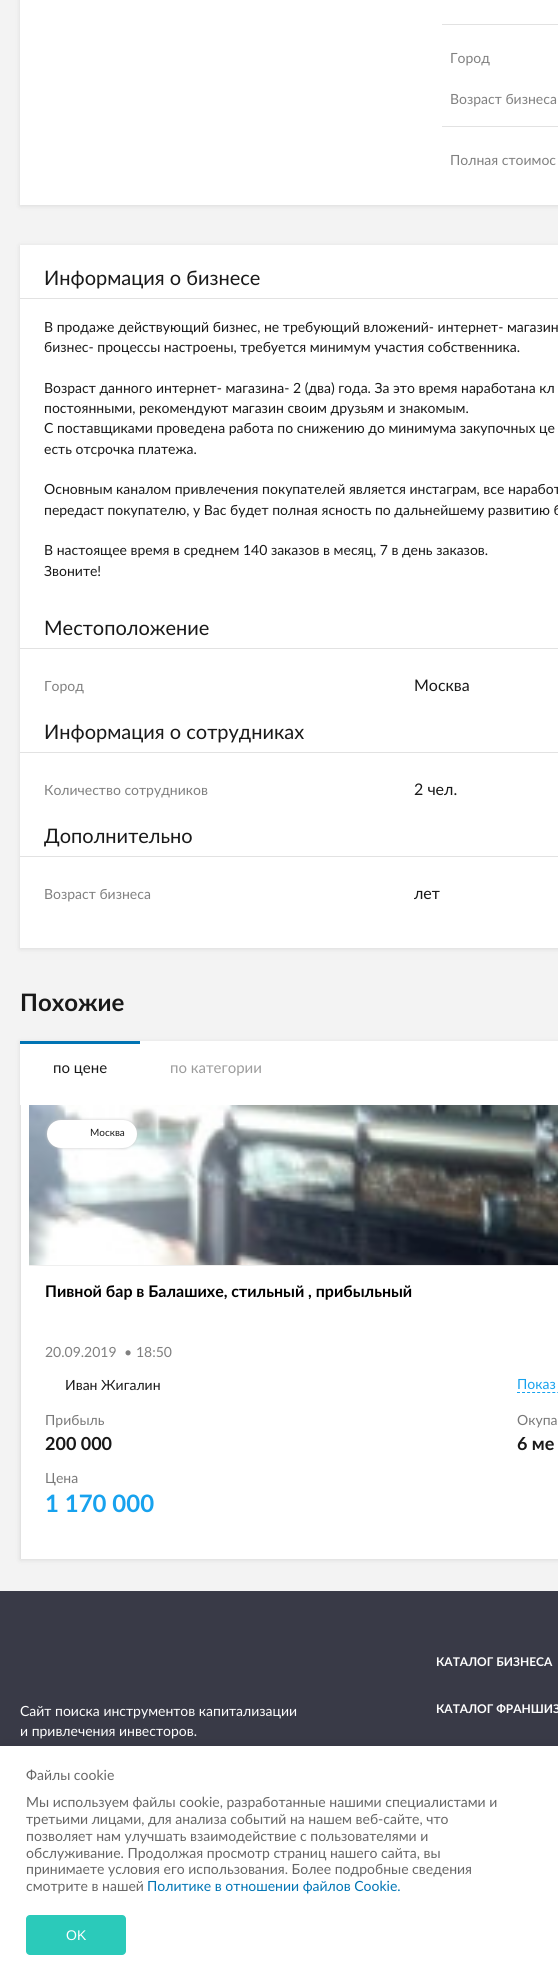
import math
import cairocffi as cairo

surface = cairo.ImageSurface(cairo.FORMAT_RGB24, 558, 1975)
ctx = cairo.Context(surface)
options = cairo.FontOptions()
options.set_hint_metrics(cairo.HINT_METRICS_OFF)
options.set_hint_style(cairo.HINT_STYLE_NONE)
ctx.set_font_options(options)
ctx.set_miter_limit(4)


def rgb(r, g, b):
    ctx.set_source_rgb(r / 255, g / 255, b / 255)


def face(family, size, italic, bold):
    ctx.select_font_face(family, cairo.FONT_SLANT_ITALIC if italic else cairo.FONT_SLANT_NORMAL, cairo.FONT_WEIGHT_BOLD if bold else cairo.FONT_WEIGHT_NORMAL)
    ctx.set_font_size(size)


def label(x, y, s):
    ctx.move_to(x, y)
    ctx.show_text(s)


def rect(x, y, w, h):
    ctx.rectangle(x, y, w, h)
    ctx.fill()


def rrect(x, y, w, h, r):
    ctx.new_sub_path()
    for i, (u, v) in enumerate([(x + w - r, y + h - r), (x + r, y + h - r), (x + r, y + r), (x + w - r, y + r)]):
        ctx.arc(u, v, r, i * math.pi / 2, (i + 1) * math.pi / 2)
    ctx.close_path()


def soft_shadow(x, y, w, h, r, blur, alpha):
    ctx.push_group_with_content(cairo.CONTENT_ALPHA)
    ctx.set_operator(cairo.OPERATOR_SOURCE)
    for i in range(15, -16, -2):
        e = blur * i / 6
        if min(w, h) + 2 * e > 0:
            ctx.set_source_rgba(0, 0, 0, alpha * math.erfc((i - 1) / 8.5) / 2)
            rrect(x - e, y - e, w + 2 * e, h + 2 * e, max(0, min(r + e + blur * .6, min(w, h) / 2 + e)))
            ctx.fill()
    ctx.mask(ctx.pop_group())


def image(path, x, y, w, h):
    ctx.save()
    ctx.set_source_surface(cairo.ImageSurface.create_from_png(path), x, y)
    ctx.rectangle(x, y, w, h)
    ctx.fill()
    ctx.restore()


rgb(243, 243, 243)
ctx.paint()
rgb(0, 0, 0)
soft_shadow(20, -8, 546, 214, 0, 2.5, 0.1)
rgb(255, 255, 255)
rect(20, 0, 538, 205)
rgb(226, 226, 226)
rect(442, 24, 116, 1)
face('Lato', 14, 0, 0)
rgb(128, 128, 128)
label(450, 63, 'Город')
label(450, 104, 'Возраст бизнеса')
rgb(226, 226, 226)
rect(442, 126, 116, 1)
rgb(128, 128, 128)
label(450, 165, 'Полная стоимос')
rgb(0, 0, 0)
soft_shadow(20, 246, 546, 703, 0, 2.5, 0.1)
rgb(255, 255, 255)
rect(20, 245, 538, 703)
rgb(226, 226, 226)
rect(20, 298, 538, 1)
face('Lato', 20, 0, 0)
rgb(25, 25, 25)
label(44, 285, 'Информация о бизнесе')
face('Lato', 14, 0, 0)
label(44, 332, 'В продаже действующий бизнес, не требующий вложений- интернет- магазин')
label(44, 352, 'бизнес- процессы настроены, требуется минимум участия собственника.')
label(44, 393, 'Возраст данного интернет- магазина- 2 (два) года. За это время наработана кл')
label(44, 413, 'постоянными, рекомендуют магазин своим друзьям и знакомым.')
label(44, 433, 'С поставщиками проведена работа по снижению до минимума закупочных це')
label(44, 454, 'есть отсрочка платежа.')
label(44, 494, 'Основным каналом привлечения покупателей является инстаграм, все наработ')
label(44, 515, 'передаст покупателю, у Вас будет полная ясность по дальнейшему развитию б')
label(44, 555, 'В настоящее время в среднем 140 заказов в месяц, 7 в день заказов.')
label(44, 576, 'Звоните!')
rgb(226, 226, 226)
rect(20, 648, 538, 1)
face('Lato', 20, 0, 0)
rgb(25, 25, 25)
label(44, 635, 'Местоположение')
face('Lato', 14, 0, 0)
rgb(128, 128, 128)
label(44, 691, 'Город')
face('Lato', 16, 0, 0)
rgb(25, 25, 25)
label(414, 691, 'Москва')
rgb(226, 226, 226)
rect(20, 752, 538, 1)
face('Lato', 20, 0, 0)
rgb(25, 25, 25)
label(44, 739, 'Информация о сотрудниках')
face('Lato', 14, 0, 0)
rgb(128, 128, 128)
label(44, 795, 'Количество сотрудников')
face('Lato', 16, 0, 0)
rgb(25, 25, 25)
label(414, 795, '2 чел.')
rgb(226, 226, 226)
rect(20, 856, 538, 1)
face('Lato', 20, 0, 0)
rgb(25, 25, 25)
label(44, 843, 'Дополнительно')
face('Lato', 14, 0, 0)
rgb(128, 128, 128)
label(44, 899, 'Возраст бизнеса')
face('Lato', 16, 0, 0)
rgb(25, 25, 25)
label(414, 899, 'лет')
face('Lato', 24, 0, 1)
label(20, 1011, 'Похожие')
rgb(0, 0, 0)
soft_shadow(20, 1042, 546, 518, 0, 2.5, 0.1)
rgb(255, 255, 255)
rect(20, 1041, 538, 518)
rgb(0, 116, 180)
rect(20, 1041, 120, 3)
face('Lato', 15, 0, 0)
rgb(25, 25, 25)
label(53, 1073, 'по цене')
rgb(156, 156, 156)
label(170, 1073, 'по категории')
rgb(226, 226, 226)
rect(20, 1105, 1, 454)
rgb(239, 239, 239)
rect(29, 1265, 529, 1)
image('image0.png', 29, 1105, 529, 160)
rgb(201, 201, 201)
soft_shadow(47, 1120, 90, 28, 14, 1.5, 1)
rgb(255, 255, 255)
rrect(47, 1120, 90, 28, 14)
ctx.fill()
face('Lato', 10, 0, 0)
rgb(25, 25, 25)
label(90, 1136, 'Москва')
face('Lato', 16, 0, 1)
rgb(0, 0, 0)
label(45, 1297, 'Пивной бар в Балашихе, стильный , прибыльный')
face('Lato', 14, 0, 0)
rgb(128, 128, 128)
label(45, 1357, '20.09.2019')
label(124, 1357, '•')
label(136, 1357, '18:50')
rgb(25, 25, 25)
label(65, 1390, 'Иван Жигалин')
rgb(23, 162, 238)
label(517, 1389, 'Показ')
ctx.new_path()
ctx.move_to(517, 1392.5)
ctx.line_to(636, 1392.5)
ctx.set_line_width(1)
ctx.set_dash([3, 2.04])
ctx.stroke()
rgb(121, 121, 121)
label(45, 1425, 'Прибыль')
face('Lato', 18, 0, 1)
rgb(25, 25, 25)
label(45, 1450, '200 000')
face('Lato', 14, 0, 0)
rgb(121, 121, 121)
label(517, 1425, 'Окупа')
face('Lato', 18, 0, 1)
rgb(25, 25, 25)
label(517, 1450, '6 ме')
face('Lato', 14, 0, 0)
rgb(121, 121, 121)
label(45, 1483, 'Цена')
face('Lato', 24, 0, 1)
rgb(23, 162, 238)
label(45, 1512, '1 170 000')
rgb(57, 58, 71)
rect(0, 1591, 558, 155)
face('Lato', 12, 0, 1)
rgb(255, 255, 255)
label(436, 1666, 'КАТАЛОГ БИЗНЕСА')
label(436, 1713, 'КАТАЛОГ ФРАНШИЗ')
face('Lato', 14, 0, 0)
label(20, 1716, 'Cайт поиска инструментов капитализации')
label(20, 1736, 'и привлечения инвесторов.')
rgb(0, 0, 0)
soft_shadow(0, 1751, 558, 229, 0, 10, 0.12)
rgb(255, 255, 255)
rect(0, 1746, 558, 229)
rgb(102, 102, 102)
label(26, 1780, 'Файлы cookie')
label(26, 1807, 'Мы используем файлы cookie, разработанные нашими специалистами и')
label(26, 1824, 'третьими лицами, для анализа событий на нашем веб-сайте, что')
label(26, 1841, 'позволяет нам улучшать взаимодействие с пользователями и')
label(26, 1858, 'обслуживание. Продолжая просмотр страниц нашего сайта, вы')
label(26, 1874, 'принимаете условия его использования. Более подробные сведения')
label(26, 1891, 'смотрите в нашей')
rgb(0, 116, 180)
label(147, 1891, 'Политике в отношении файлов Cookie.')
rgb(43, 202, 186)
rrect(26, 1915, 100, 40, 4)
ctx.fill()
face('Liberation Sans', 14, 0, 0)
rgb(255, 255, 255)
label(66, 1940, 'OK')
surface.write_to_png('render.png')
